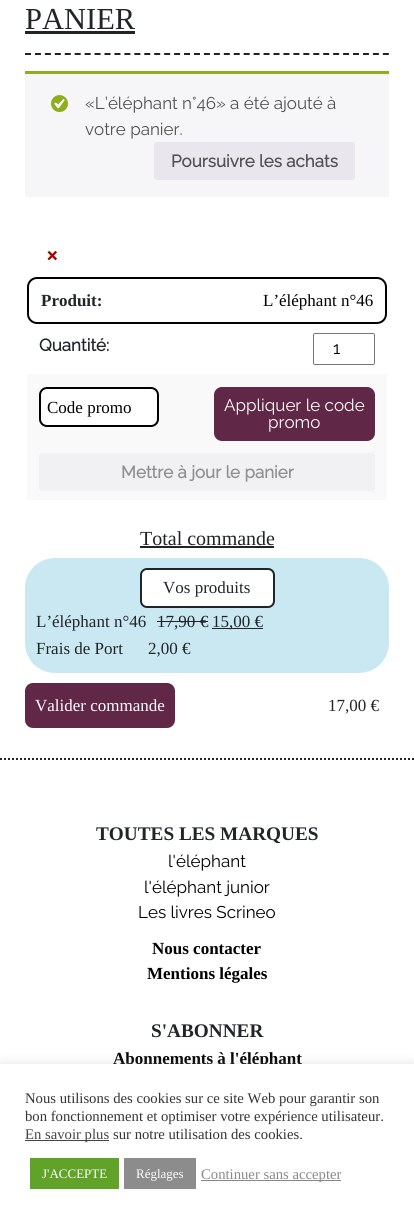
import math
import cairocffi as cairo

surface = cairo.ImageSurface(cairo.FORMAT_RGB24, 414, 1219)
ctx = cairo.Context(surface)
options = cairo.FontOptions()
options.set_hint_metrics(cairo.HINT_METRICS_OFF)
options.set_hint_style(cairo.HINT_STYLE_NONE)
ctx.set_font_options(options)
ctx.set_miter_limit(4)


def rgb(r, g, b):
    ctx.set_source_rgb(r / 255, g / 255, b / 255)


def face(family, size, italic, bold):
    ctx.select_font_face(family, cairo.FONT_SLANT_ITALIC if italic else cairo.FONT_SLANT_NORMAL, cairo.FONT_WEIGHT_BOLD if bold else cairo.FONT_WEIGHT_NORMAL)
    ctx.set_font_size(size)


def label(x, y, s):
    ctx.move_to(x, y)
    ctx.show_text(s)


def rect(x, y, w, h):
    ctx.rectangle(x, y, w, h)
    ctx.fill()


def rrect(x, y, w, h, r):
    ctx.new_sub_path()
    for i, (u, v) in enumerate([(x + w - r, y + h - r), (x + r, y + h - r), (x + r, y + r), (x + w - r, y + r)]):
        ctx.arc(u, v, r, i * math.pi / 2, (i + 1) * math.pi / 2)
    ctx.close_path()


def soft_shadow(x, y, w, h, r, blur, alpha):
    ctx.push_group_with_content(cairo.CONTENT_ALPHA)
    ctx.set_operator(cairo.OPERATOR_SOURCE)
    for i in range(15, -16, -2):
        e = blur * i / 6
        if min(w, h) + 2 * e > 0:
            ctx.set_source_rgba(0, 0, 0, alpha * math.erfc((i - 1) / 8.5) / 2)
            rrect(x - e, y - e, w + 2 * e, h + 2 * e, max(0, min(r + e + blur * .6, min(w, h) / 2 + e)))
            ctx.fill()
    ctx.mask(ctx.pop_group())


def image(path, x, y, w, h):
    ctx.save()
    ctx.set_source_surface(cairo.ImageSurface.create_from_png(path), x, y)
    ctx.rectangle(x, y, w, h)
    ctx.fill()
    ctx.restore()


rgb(255, 255, 255)
ctx.paint()
ctx.new_path()
ctx.move_to(25, 54)
ctx.line_to(389, 54)
rgb(34, 34, 34)
ctx.set_dash([6, 3.94])
ctx.stroke()
face('Liberation Serif', 30.5, 0, 0)
rgb(33, 37, 41)
label(25, 29, 'PANIER')
rect(25, 31, 110, 3)
rgb(246, 245, 248)
rect(25, 74, 364, 123)
rgb(143, 174, 27)
rect(25, 71, 364, 3)
image('image0.png', 51, 95, 17, 18)
face('Raleway Thin', 17, 0, 0)
rgb(81, 81, 81)
label(85, 109, '«L’éléphant n°46» a été ajouté à')
label(85, 135, 'votre panier.')
rgb(233, 230, 237)
rrect(154, 142, 201, 38, 3)
ctx.fill()
face('Raleway', 17, 0, 1)
rgb(81, 81, 81)
label(171, 167, 'Poursuivre les achats')
face('Raleway', 26, 0, 1)
rgb(170, 0, 0)
label(46, 263, '×')
rrect(28, 278, 358, 45, 9)
rgb(0, 0, 0)
ctx.set_dash([])
ctx.stroke()
face('Liberation Serif', 17, 0, 1)
rgb(33, 37, 41)
label(41, 306, 'Produit:')
face('Liberation Serif', 17, 0, 0)
rgb(0, 0, 0)
label(263, 306, 'L’éléphant n°46')
face('Raleway', 17, 0, 1)
rgb(33, 37, 41)
label(39, 351, 'Quantité:')
rrect(313.5, 333.5, 61, 31, 1.5)
rgb(118, 118, 118)
ctx.set_line_width(1)
ctx.stroke()
face('Raleway Thin', 17, 0, 0)
rgb(0, 0, 0)
label(333, 354, '1')
rgb(249, 249, 249)
rect(27, 374, 360, 126)
rgb(255, 255, 255)
rrect(40, 388, 118, 38, 7)
ctx.fill_preserve()
rgb(0, 0, 0)
ctx.set_line_width(2)
ctx.stroke()
face('Liberation Serif', 17, 0, 0)
label(47, 413, 'Code promo')
rgb(97, 39, 70)
rrect(214, 387, 161, 54, 8)
ctx.fill()
face('Raleway Thin', 17, 0, 0)
rgb(255, 255, 255)
label(224, 411, 'Appliquer le code')
label(268, 428, 'promo')
rgb(241, 240, 243)
rrect(39, 453, 336, 38, 3)
ctx.fill()
face('Raleway', 17, 0, 1)
rgb(141, 143, 145)
label(121, 478, 'Mettre à jour le panier')
face('Liberation Serif', 20, 0, 0)
rgb(33, 37, 41)
label(140, 545, 'Total commande')
rect(140, 546, 134, 2)
rgb(201, 232, 241)
rrect(25, 558, 364, 115, 30)
ctx.fill()
rgb(255, 255, 255)
rrect(141, 569, 133, 38, 6)
ctx.fill_preserve()
rgb(33, 37, 41)
ctx.stroke()
face('Liberation Serif', 17, 0, 0)
label(163, 593, 'Vos produits')
label(36, 627, 'L’éléphant n°46')
label(157, 627, '17,90')
rect(157, 621, 43, 1)
label(200, 627, '€')
rect(200, 621, 8, 1)
rect(212, 628, 51, 1)
label(212, 627, '15,00 €')
label(36, 654, 'Frais de Port')
label(148, 654, '2,00 €')
rgb(97, 39, 70)
rrect(25, 683, 150, 45, 8)
ctx.fill()
rgb(255, 255, 255)
label(35, 711, 'Valider commande')
rgb(33, 37, 41)
label(328, 711, '17,00 €')
ctx.new_path()
ctx.move_to(0, 759)
ctx.line_to(414, 759)
ctx.set_dash([2, 2])
ctx.stroke()
face('Liberation Serif', 19.25, 0, 1)
label(96, 840, 'TOUTES LES MARQUES')
face('Raleway Thin', 17, 0, 0)
rgb(0, 0, 0)
label(168, 867, 'l\'éléphant')
label(144, 893, 'l\'éléphant junior')
label(138, 918, 'Les livres Scrineo')
face('Liberation Serif', 17, 0, 1)
label(152, 954, 'Nous contacter')
label(147, 979, 'Mentions légales')
face('Liberation Serif', 19.25, 0, 1)
rgb(33, 37, 41)
label(151, 1037, 'S\'ABONNER')
face('Liberation Serif', 17, 0, 1)
rgb(0, 0, 0)
label(113, 1064, 'Abonnements à l\'éléphant')
rgb(172, 171, 171)
soft_shadow(0, 1063, 414, 155, 0, 5, 0.3)
rgb(255, 255, 255)
rect(0, 1064, 414, 155)
face('Liberation Serif', 14.7, 0, 0)
rgb(51, 51, 51)
label(25, 1103, 'Nous utilisons des cookies sur ce site Web pour garantir son')
label(25, 1121, 'bon fonctionnement et optimiser votre expérience utilisateur.')
rgb(68, 68, 68)
rect(25, 1140, 84, 1)
label(25, 1139, 'En savoir plus')
rgb(51, 51, 51)
label(113, 1139, 'sur notre utilisation des cookies.')
rgb(97, 162, 41)
rect(30, 1158, 89, 31)
face('Liberation Serif', 13, 0, 0)
rgb(255, 255, 255)
label(42, 1178, 'J\'ACCEPTE')
rgb(140, 140, 140)
rect(124, 1158, 72, 31)
rgb(255, 255, 255)
label(136, 1178, 'Réglages')
rgb(137, 137, 137)
rect(201, 1180, 140, 1)
face('Liberation Serif', 14.7, 0, 0)
label(201, 1179, 'Continuer sans accepter')
surface.write_to_png('render.png')
